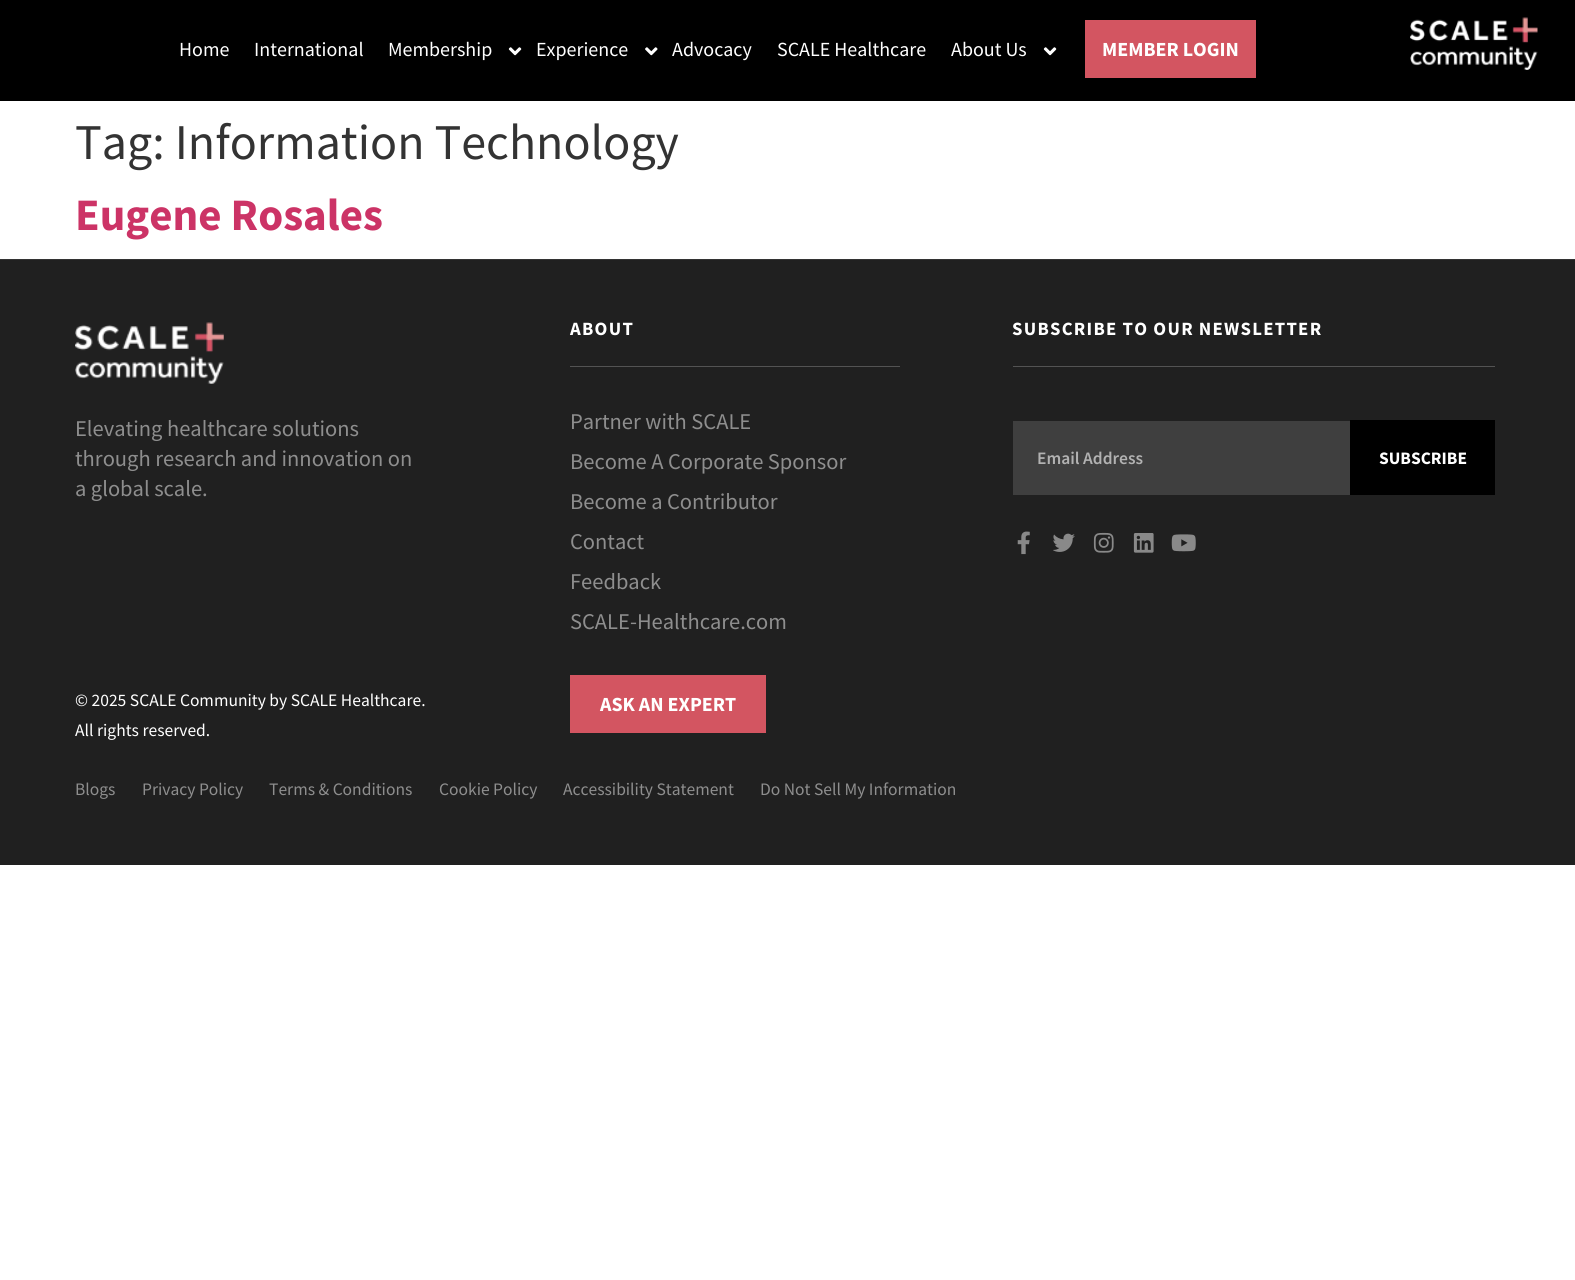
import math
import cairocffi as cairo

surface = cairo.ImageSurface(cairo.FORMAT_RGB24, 1575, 1280)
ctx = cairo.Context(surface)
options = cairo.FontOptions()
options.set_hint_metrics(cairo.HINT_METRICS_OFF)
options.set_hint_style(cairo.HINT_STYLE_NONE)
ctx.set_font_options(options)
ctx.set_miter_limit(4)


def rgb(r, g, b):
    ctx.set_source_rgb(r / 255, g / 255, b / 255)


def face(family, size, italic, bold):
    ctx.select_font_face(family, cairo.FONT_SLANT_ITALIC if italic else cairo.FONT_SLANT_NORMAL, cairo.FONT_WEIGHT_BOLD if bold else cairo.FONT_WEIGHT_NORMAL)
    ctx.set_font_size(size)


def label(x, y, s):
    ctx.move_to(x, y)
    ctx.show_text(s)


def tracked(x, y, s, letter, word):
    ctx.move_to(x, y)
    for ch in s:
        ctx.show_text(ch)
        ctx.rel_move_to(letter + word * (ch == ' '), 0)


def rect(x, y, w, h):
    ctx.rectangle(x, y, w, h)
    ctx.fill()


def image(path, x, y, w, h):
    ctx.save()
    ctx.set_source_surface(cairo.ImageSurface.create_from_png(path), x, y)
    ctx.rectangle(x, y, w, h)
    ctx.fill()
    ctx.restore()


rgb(255, 255, 255)
ctx.paint()
rgb(0, 0, 0)
rect(0, 0, 1575, 101)
face('Source Sans Pro', 20, 0, 0)
rgb(255, 255, 255)
label(179, 56, 'Home')
label(254, 56, 'International')
label(388, 56, 'Membership')
image('image0.png', 508, 47, 14, 9)
label(536, 56, 'Experience')
image('image1.png', 645, 47, 13, 9)
label(672, 56, 'Advocacy')
label(777, 56, 'SCALE Healthcare')
label(951, 56, 'About Us')
image('image0.png', 1043, 47, 14, 9)
rgb(211, 85, 97)
rect(1085, 20, 171, 58)
face('Source Sans Pro', 20, 0, 1)
rgb(255, 255, 255)
label(1102, 56, 'MEMBER LOGIN')
image('image2.png', 1410, 17, 128, 53)
face('Source Sans Pro', 50, 0, 0)
rgb(51, 51, 51)
label(75, 159, 'Tag: Information Technology')
face('Source Sans Pro', 45, 0, 1)
rgb(204, 51, 102)
label(75, 230, 'Eugene Rosales')
rgb(32, 32, 32)
rect(0, 260, 1575, 605)
rgb(51, 51, 51)
rect(0, 259, 1575, 1)
rgb(83, 83, 83)
rect(570, 366, 330, 1)
face('Source Sans Pro', 18.75, 0, 1)
rgb(255, 255, 255)
tracked(570, 335, 'ABOUT', 1.25, 0)
face('Source Sans Pro', 22.5, 0, 0)
rgb(142, 142, 142)
label(570, 429, 'Partner with SCALE')
label(570, 469, 'Become A Corporate Sponsor')
label(570, 509, 'Become a Contributor')
label(570, 549, 'Contact')
label(570, 589, 'Feedback')
label(570, 629, 'SCALE-Healthcare.com')
rgb(211, 85, 97)
rect(570, 675, 196, 58)
face('Source Sans Pro', 20, 0, 1)
rgb(255, 255, 255)
label(600, 711, 'ASK AN EXPERT')
rgb(83, 83, 83)
rect(1013, 366, 482, 1)
face('Source Sans Pro', 18.75, 0, 1)
rgb(255, 255, 255)
tracked(1012, 335, 'SUBSCRIBE TO OUR NEWSLETTER', 1.25, 0)
rgb(63, 63, 63)
rect(1013, 421, 337, 74)
face('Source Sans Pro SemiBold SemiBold', 17.5, 0, 0)
rgb(178, 178, 178)
label(1037, 464, 'Email Address')
rgb(0, 0, 0)
rect(1350, 420, 145, 75)
face('Source Sans Pro', 17.5, 0, 1)
rgb(255, 255, 255)
label(1379, 464, 'SUBSCRIBE')
image('image3.png', 1017, 531, 13, 24)
image('image4.png', 1053, 533, 22, 19)
image('image5.png', 1093, 532, 21, 21)
image('image6.png', 1133, 533, 21, 20)
image('image7.png', 1171, 534, 25, 18)
image('image8.png', 75, 322, 149, 62)
face('Source Sans Pro', 22.5, 0, 0)
rgb(142, 142, 142)
label(75, 436, 'Elevating healthcare solutions')
label(75, 466, 'through research and innovation on')
label(75, 496, 'a global scale.')
face('Source Sans Pro', 17.5, 0, 0)
rgb(255, 255, 255)
label(75, 706, '© 2025 SCALE Community by SCALE Healthcare.')
label(75, 736, 'All rights reserved.')
rgb(142, 142, 142)
label(75, 795, 'Blogs')
label(142, 795, 'Privacy Policy')
label(269, 795, 'Terms & Conditions')
label(439, 795, 'Cookie Policy')
label(563, 795, 'Accessibility Statement')
label(760, 795, 'Do Not Sell My Information')
surface.write_to_png('render.png')
